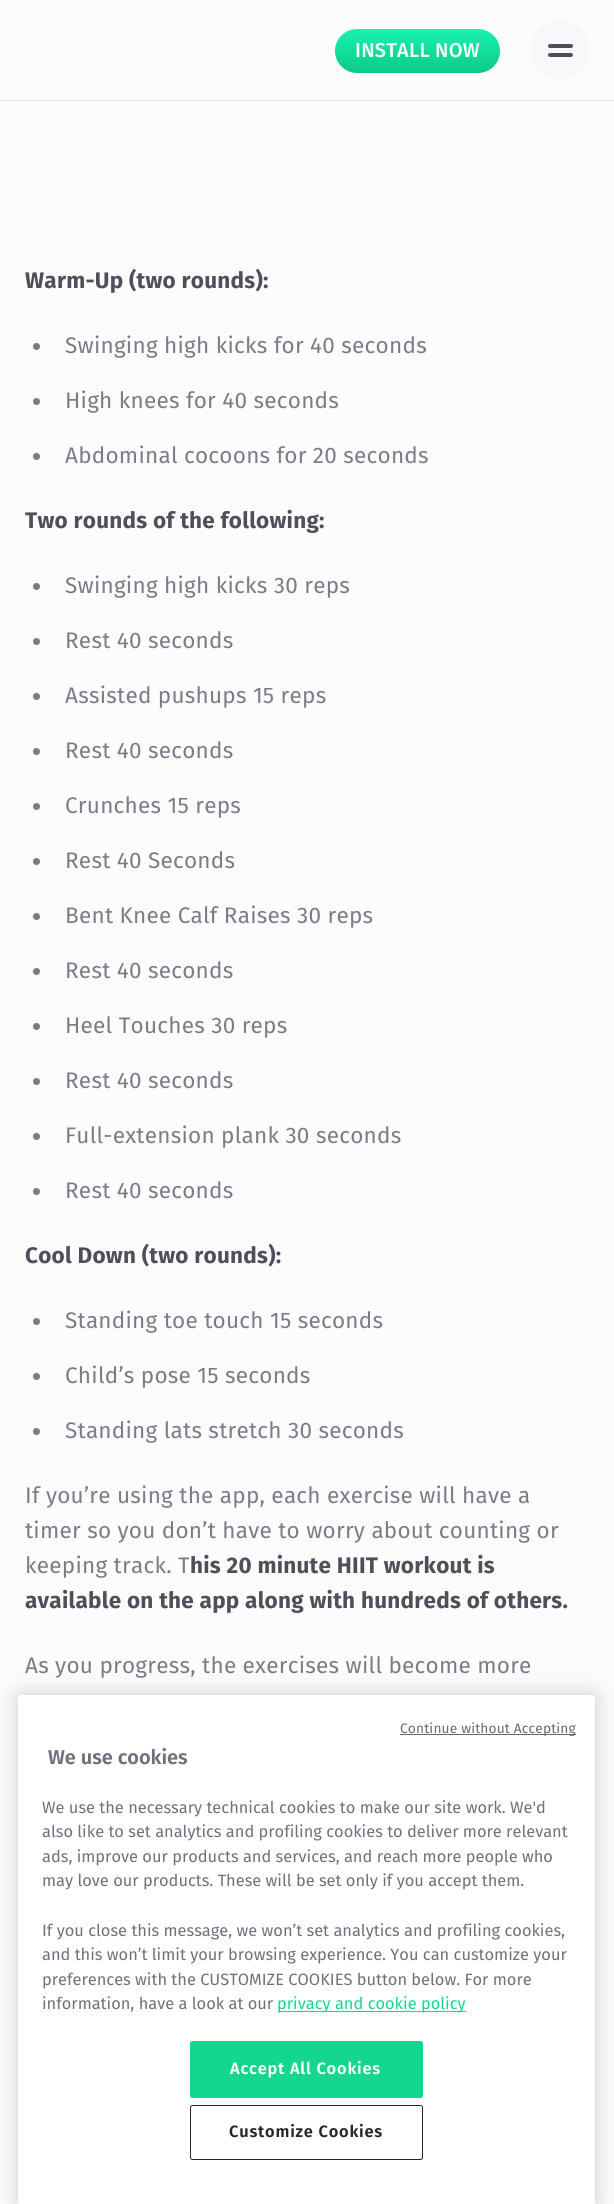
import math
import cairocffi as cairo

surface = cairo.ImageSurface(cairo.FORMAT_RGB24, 614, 2204)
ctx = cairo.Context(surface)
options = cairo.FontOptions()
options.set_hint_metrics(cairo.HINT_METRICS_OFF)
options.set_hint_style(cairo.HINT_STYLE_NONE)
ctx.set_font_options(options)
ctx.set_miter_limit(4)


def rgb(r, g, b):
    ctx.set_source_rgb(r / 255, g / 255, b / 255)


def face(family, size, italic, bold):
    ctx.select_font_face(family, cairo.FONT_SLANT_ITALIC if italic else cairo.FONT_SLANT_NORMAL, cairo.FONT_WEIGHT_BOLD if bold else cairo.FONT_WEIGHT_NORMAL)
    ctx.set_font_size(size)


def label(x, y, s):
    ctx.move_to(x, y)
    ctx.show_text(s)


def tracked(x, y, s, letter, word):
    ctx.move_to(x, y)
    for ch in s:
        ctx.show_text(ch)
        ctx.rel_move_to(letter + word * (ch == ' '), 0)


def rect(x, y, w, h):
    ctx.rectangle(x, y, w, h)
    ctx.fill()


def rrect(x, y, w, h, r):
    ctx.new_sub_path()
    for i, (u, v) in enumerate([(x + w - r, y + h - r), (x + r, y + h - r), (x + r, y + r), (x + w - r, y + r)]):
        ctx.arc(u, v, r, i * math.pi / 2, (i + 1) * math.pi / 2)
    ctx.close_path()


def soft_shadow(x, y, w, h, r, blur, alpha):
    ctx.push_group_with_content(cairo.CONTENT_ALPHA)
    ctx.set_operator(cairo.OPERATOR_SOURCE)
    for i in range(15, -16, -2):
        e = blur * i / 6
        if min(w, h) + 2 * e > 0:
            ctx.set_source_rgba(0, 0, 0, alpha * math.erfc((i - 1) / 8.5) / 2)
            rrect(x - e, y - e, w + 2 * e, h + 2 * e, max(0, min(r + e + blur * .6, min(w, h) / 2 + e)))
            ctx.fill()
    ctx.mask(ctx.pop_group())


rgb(252, 252, 252)
ctx.paint()
rgb(214, 228, 231)
rect(0, 100, 614, 1)
gradient = cairo.LinearGradient(418, 29, 418, 73)
gradient.add_color_stop_rgba(0, 0.098, 0.949, 0.694, 1)
gradient.add_color_stop_rgba(1, 0.043, 0.792, 0.518, 1)
ctx.set_source(gradient)
rrect(335, 29, 165, 44, 22)
ctx.fill()
face('Fira Sans Medium', 20, 0, 0)
rgb(255, 255, 255)
tracked(355, 57, 'INSTALL NOW', 0.25, 0)
rgb(248, 247, 250)
ctx.new_path()
ctx.arc(560, 50, 30, 0, 2 * math.pi)
ctx.fill()
rgb(79, 79, 91)
rrect(548, 44, 25, 4, 2)
ctx.fill()
rrect(548, 53, 25, 4, 2)
ctx.fill()
face('Fira Sans', 22.5, 0, 1)
tracked(25, 288, 'Warm-Up (two rounds):', 0.25, 0)
rgb(125, 122, 137)
ctx.new_path()
ctx.arc(36.5, 346.5, 3.5, 0, 2 * math.pi)
ctx.fill()
face('Fira Sans', 22.5, 0, 0)
tracked(65, 353, 'Swinging high kicks for 40 seconds', 0.25, 0)
ctx.new_path()
ctx.arc(36.5, 401.5, 3.5, 0, 2 * math.pi)
ctx.fill()
tracked(65, 408, 'High knees for 40 seconds', 0.25, 0)
ctx.new_path()
ctx.arc(36.5, 456.5, 3.5, 0, 2 * math.pi)
ctx.fill()
tracked(65, 463, 'Abdominal cocoons for 20 seconds', 0.25, 0)
face('Fira Sans', 22.5, 0, 1)
rgb(79, 79, 91)
tracked(25, 528, 'Two rounds of the following:', 0.25, 0)
rgb(125, 122, 137)
ctx.new_path()
ctx.arc(36.5, 586.5, 3.5, 0, 2 * math.pi)
ctx.fill()
face('Fira Sans', 22.5, 0, 0)
tracked(65, 593, 'Swinging high kicks 30 reps', 0.25, 0)
ctx.new_path()
ctx.arc(36.5, 641.5, 3.5, 0, 2 * math.pi)
ctx.fill()
tracked(65, 648, 'Rest 40 seconds', 0.25, 0)
ctx.new_path()
ctx.arc(36.5, 696.5, 3.5, 0, 2 * math.pi)
ctx.fill()
tracked(65, 703, 'Assisted pushups 15 reps', 0.25, 0)
ctx.new_path()
ctx.arc(36.5, 751.5, 3.5, 0, 2 * math.pi)
ctx.fill()
tracked(65, 758, 'Rest 40 seconds', 0.25, 0)
ctx.new_path()
ctx.arc(36.5, 806.5, 3.5, 0, 2 * math.pi)
ctx.fill()
tracked(65, 813, 'Crunches 15 reps', 0.25, 0)
ctx.new_path()
ctx.arc(36.5, 861.5, 3.5, 0, 2 * math.pi)
ctx.fill()
tracked(65, 868, 'Rest 40 Seconds', 0.25, 0)
ctx.new_path()
ctx.arc(36.5, 916.5, 3.5, 0, 2 * math.pi)
ctx.fill()
tracked(65, 923, 'Bent Knee Calf Raises 30 reps', 0.25, 0)
ctx.new_path()
ctx.arc(36.5, 971.5, 3.5, 0, 2 * math.pi)
ctx.fill()
tracked(65, 978, 'Rest 40 seconds', 0.25, 0)
ctx.new_path()
ctx.arc(36.5, 1026.5, 3.5, 0, 2 * math.pi)
ctx.fill()
tracked(65, 1033, 'Heel Touches 30 reps', 0.25, 0)
ctx.new_path()
ctx.arc(36.5, 1081.5, 3.5, 0, 2 * math.pi)
ctx.fill()
tracked(65, 1088, 'Rest 40 seconds', 0.25, 0)
ctx.new_path()
ctx.arc(36.5, 1136.5, 3.5, 0, 2 * math.pi)
ctx.fill()
tracked(65, 1143, 'Full-extension plank 30 seconds', 0.25, 0)
ctx.new_path()
ctx.arc(36.5, 1191.5, 3.5, 0, 2 * math.pi)
ctx.fill()
tracked(65, 1198, 'Rest 40 seconds', 0.25, 0)
face('Fira Sans', 22.5, 0, 1)
rgb(79, 79, 91)
tracked(25, 1263, 'Cool Down (two rounds):', 0.25, 0)
rgb(125, 122, 137)
ctx.new_path()
ctx.arc(36.5, 1321.5, 3.5, 0, 2 * math.pi)
ctx.fill()
face('Fira Sans', 22.5, 0, 0)
tracked(65, 1328, 'Standing toe touch 15 seconds', 0.25, 0)
ctx.new_path()
ctx.arc(36.5, 1376.5, 3.5, 0, 2 * math.pi)
ctx.fill()
tracked(65, 1383, 'Child’s pose 15 seconds', 0.25, 0)
ctx.new_path()
ctx.arc(36.5, 1431.5, 3.5, 0, 2 * math.pi)
ctx.fill()
tracked(65, 1438, 'Standing lats stretch 30 seconds', 0.25, 0)
tracked(25, 1503, 'If you’re using the app, each exercise will have a', 0.25, 0)
tracked(25, 1538, 'timer so you don’t have to worry about counting or', 0.25, 0)
tracked(25, 1573, 'keeping track. T', 0.25, 0)
face('Fira Sans', 22.5, 0, 1)
rgb(79, 79, 91)
tracked(190, 1573, 'his 20 minute HIIT workout is', 0.25, 0)
tracked(25, 1608, 'available on the app along with hundreds of others.', 0.25, 0)
face('Fira Sans', 22.5, 0, 0)
rgb(125, 122, 137)
tracked(25, 1673, 'As you progress, the exercises will become more', 0.25, 0)
rgb(0, 0, 0)
soft_shadow(18, 1695, 577, 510, 3, 11, 0.2)
rgb(255, 255, 255)
rrect(18, 1695, 577, 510, 3)
ctx.fill()
rgb(105, 105, 105)
rect(400, 1734, 176, 1)
face('Fira Sans', 13.75, 0, 0)
tracked(400, 1733, 'Continue without Accepting', 0.15, 0)
face('Fira Sans SemiBold', 20, 0, 0)
rgb(113, 111, 125)
label(48, 1764, 'We use cookies')
face('Fira Sans', 16.4, 0, 0)
label(42, 1813, 'We use the necessary technical cookies to make our site work. We\'d')
label(42, 1837, 'also like to set analytics and profiling cookies to deliver more relevant')
label(42, 1862, 'ads, improve our products and services, and reach more people who')
label(42, 1886, 'may love our products. These will be set only if you accept them.')
label(42, 1936, 'If you close this message, we won’t set analytics and profiling cookies,')
label(42, 1960, 'and this won’t limit your browsing experience. You can customize your')
label(42, 1985, 'preferences with the CUSTOMIZE COOKIES button below. For more')
label(42, 2009, 'information, have a look at our')
rgb(19, 214, 143)
rect(278, 2011, 188, 1)
label(277, 2009, 'privacy and cookie policy')
rrect(190.5, 2041.5, 232, 56, 2)
ctx.fill_preserve()
ctx.set_line_width(1)
ctx.stroke()
face('Fira Sans SemiBold', 16.4, 0, 0)
rgb(255, 255, 255)
tracked(230, 2074, 'Accept All Cookies', 0.8, 0)
rrect(190.5, 2105.5, 232, 54, 2)
rgb(38, 35, 45)
ctx.stroke()
tracked(229, 2137, 'Customize Cookies', 0.8, 0)
surface.write_to_png('render.png')
